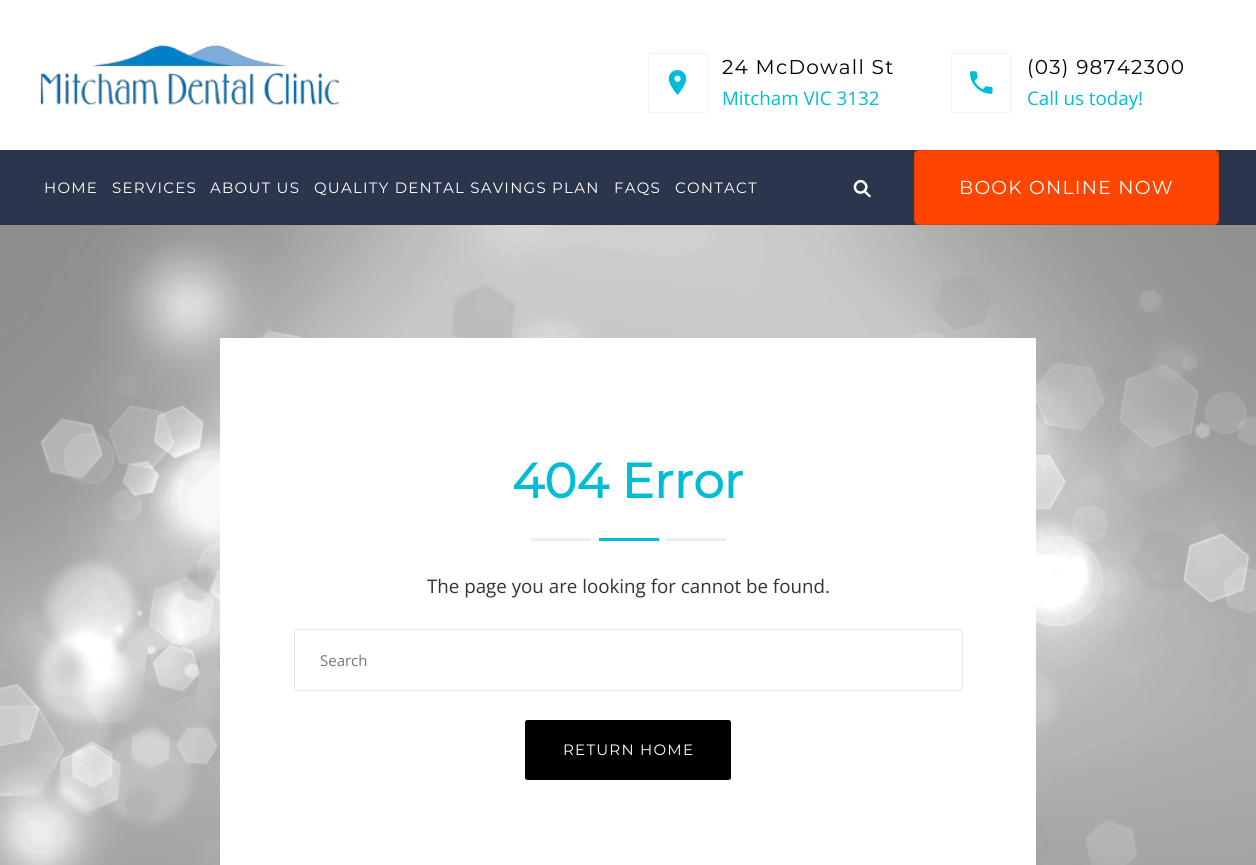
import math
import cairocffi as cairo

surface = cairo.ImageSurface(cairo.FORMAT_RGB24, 1256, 865)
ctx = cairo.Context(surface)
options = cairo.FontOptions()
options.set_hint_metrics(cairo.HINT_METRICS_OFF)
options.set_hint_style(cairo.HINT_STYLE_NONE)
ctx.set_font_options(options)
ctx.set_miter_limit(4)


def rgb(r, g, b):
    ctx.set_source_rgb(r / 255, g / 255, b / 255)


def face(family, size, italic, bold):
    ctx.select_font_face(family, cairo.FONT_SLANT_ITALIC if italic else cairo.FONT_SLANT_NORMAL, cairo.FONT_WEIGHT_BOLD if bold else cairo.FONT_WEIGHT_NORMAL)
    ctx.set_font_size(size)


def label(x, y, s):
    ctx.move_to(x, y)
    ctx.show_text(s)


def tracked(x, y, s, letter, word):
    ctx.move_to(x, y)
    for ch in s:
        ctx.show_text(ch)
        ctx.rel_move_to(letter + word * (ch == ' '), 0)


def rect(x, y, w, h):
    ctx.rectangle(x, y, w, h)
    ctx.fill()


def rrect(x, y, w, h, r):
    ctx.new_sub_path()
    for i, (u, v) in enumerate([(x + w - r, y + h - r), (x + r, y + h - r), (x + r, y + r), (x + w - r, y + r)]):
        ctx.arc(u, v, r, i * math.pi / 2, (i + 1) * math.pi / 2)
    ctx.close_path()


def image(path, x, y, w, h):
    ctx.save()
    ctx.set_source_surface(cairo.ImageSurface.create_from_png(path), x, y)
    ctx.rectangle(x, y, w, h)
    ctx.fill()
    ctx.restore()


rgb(255, 255, 255)
ctx.paint()
image('image0.png', 40, 45, 300, 60)
rrect(648.5, 53.5, 59, 59, 2)
rgb(242, 242, 242)
ctx.set_line_width(1)
ctx.stroke()
image('image1.png', 668, 70, 19, 25)
face('Montserrat Thin', 20, 0, 0)
rgb(0, 0, 0)
tracked(722, 74, '24 McDowall St', 1.25, 0)
face('Open Sans', 18.75, 0, 0)
rgb(0, 188, 212)
label(722, 105, 'Mitcham VIC 3132')
rrect(951.5, 53.5, 59, 59, 2)
rgb(242, 242, 242)
ctx.stroke()
image('image2.png', 970, 71, 23, 23)
face('Montserrat Thin', 20, 0, 0)
rgb(0, 0, 0)
tracked(1027, 74, '(03) 98742300', 1.25, 0)
face('Open Sans', 18.75, 0, 0)
rgb(0, 188, 212)
label(1027, 105, 'Call us today!')
rgb(43, 53, 75)
rect(0, 151, 1256, 73)
rgb(41, 50, 71)
rect(0, 150, 1256, 1)
rect(0, 224, 1256, 1)
face('Montserrat Thin', 15, 0, 0)
rgb(255, 255, 255)
tracked(44, 193, 'HOME', 1.25, 0)
tracked(112, 193, 'SERVICES', 1.25, 0)
tracked(210, 193, 'ABOUT US', 1.25, 0)
tracked(314, 193, 'QUALITY DENTAL SAVINGS PLAN', 1.25, 0)
tracked(614, 193, 'FAQS', 1.25, 0)
tracked(675, 193, 'CONTACT', 1.25, 0)
ctx.new_path()
ctx.move_to(856.5, 191)
ctx.curve_to(851.5, 185.5, 859.5, 177.5, 864.5, 183)
ctx.move_to(864.5, 183)
ctx.curve_to(870, 188, 862, 196, 856.5, 191)
ctx.set_line_width(2.5)
ctx.stroke()
ctx.new_path()
ctx.move_to(865, 190)
ctx.line_to(871, 196)
ctx.line_to(869.5, 197.5)
ctx.line_to(863, 191.5)
ctx.close_path()
ctx.fill()
rgb(255, 69, 0)
rrect(914, 150, 305, 75, 5)
ctx.fill()
rrect(914.5, 150.5, 304, 74, 4.5)
ctx.set_source_rgba(0, 0, 0, 0.1)
ctx.set_line_width(1)
ctx.stroke()
face('Montserrat Thin', 18.75, 0, 0)
rgb(255, 255, 255)
tracked(959, 194, 'BOOK ONLINE NOW', 1.25, 0)
image('image3.png', 0, 225, 1256, 640)
rect(220, 338, 816, 527)
face('Montserrat', 48.75, 0, 1)
rgb(0, 188, 212)
label(512, 498, '404 Error')
rgb(237, 237, 237)
rect(531, 538, 60, 3)
rect(666, 538, 60, 3)
rgb(0, 188, 212)
rect(599, 538, 60, 3)
face('Open Sans', 18.75, 0, 0)
rgb(51, 51, 51)
label(427, 593, 'The page you are looking for cannot be found.')
rrect(294.5, 629.5, 668, 61, 3.5)
rgb(230, 230, 230)
ctx.stroke()
rgb(255, 255, 255)
rrect(295, 630, 666, 60, 2.5)
ctx.fill()
face('Open Sans', 15, 0, 0)
rgb(117, 117, 117)
label(320, 666, 'Search')
rgb(0, 0, 0)
rrect(525, 720, 206, 60, 2.5)
ctx.fill()
rrect(525.5, 720.5, 205, 59, 2)
ctx.set_source_rgba(0, 0, 0, 0.1)
ctx.stroke()
face('Montserrat Thin', 15, 0, 0)
rgb(255, 255, 255)
tracked(563, 755, 'RETURN HOME', 1.25, 0)
surface.write_to_png('render.png')
